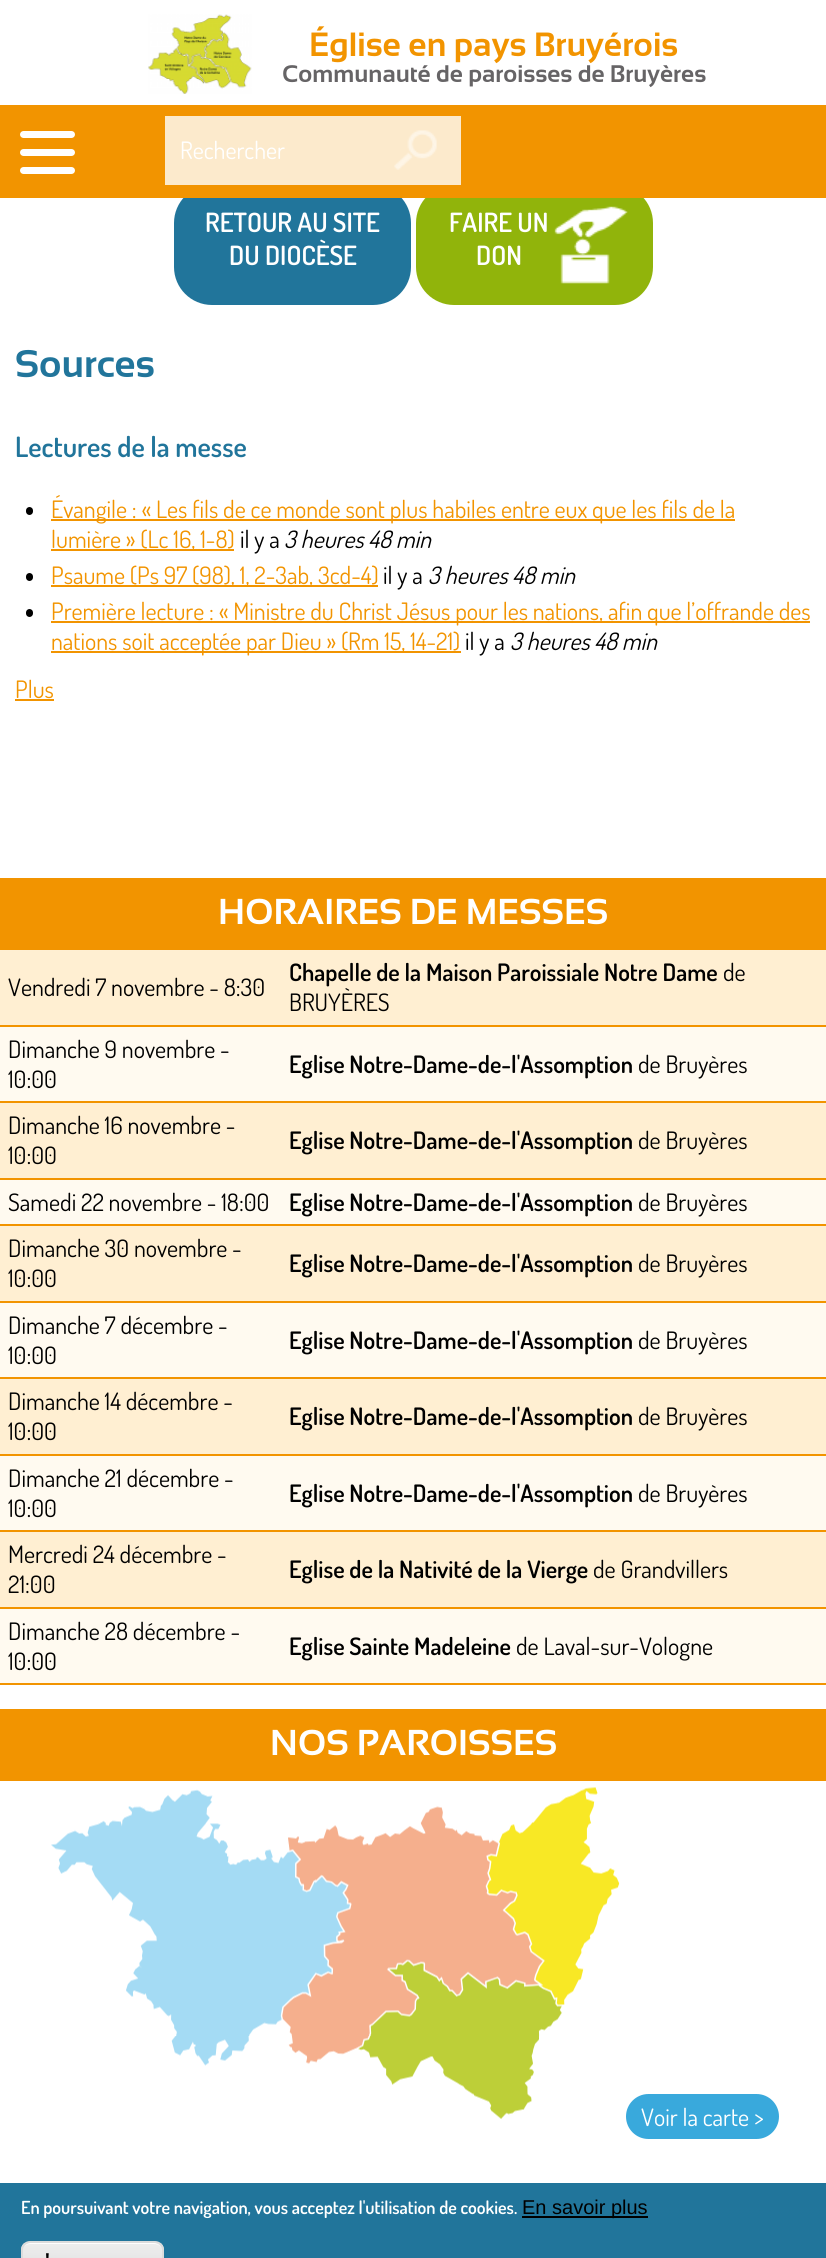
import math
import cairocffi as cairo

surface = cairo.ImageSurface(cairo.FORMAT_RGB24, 826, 2258)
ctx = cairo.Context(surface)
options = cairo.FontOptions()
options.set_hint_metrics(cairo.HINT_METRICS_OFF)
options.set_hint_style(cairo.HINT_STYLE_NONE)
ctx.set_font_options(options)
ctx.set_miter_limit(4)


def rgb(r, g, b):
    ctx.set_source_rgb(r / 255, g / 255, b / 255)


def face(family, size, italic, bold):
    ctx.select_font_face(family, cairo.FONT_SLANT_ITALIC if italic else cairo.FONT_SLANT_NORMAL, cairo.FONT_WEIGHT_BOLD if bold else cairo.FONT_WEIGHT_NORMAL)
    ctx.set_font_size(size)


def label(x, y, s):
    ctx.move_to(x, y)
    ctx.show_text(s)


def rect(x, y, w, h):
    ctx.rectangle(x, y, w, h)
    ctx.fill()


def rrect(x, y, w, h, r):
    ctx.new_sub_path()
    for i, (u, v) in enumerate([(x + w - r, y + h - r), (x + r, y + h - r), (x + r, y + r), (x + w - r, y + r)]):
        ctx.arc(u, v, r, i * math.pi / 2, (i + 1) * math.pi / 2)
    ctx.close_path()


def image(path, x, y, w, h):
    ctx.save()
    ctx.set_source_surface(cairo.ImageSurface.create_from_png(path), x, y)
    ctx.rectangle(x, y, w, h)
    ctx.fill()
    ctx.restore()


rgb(255, 255, 255)
ctx.paint()
image('image0.png', 148, 14, 104, 80)
face('Sansation', 33.6, 0, 1)
rgb(242, 148, 0)
label(309, 56, 'Église en pays Bruyérois')
face('Sansation', 24, 0, 1)
rgb(102, 100, 102)
label(282, 82, 'Communauté de paroisses de Bruyères')
rgb(33, 117, 155)
rrect(174, 185, 237, 120, 38)
ctx.fill()
rgb(145, 180, 11)
rrect(416, 185, 237, 120, 38)
ctx.fill()
rgb(242, 148, 0)
rect(0, 105, 826, 93)
rgb(252, 234, 204)
rect(165, 116, 296, 69)
face('Dosis', 24, 0, 0)
rgb(255, 255, 255)
label(180, 159, 'Rechercher')
image('image1.png', 394, 130, 43, 40)
face('Dosis SemiBold', 26.5, 0, 0)
label(205, 232, 'RETOUR AU SITE')
label(229, 265, 'DU DIOCÈSE')
image('image2.png', 554, 206, 74, 78)
label(449, 232, 'FAIRE UN')
label(476, 265, 'DON')
rrect(20, 131, 55, 7, 3.5)
ctx.fill()
rrect(20, 149, 55, 7, 3.5)
ctx.fill()
rrect(20, 167, 55, 7, 3.5)
ctx.fill()
face('Sansation', 38.5, 0, 1)
rgb(33, 117, 155)
label(15, 377, 'Sources')
face('Dosis SemiBold', 28, 0, 0)
label(15, 457, 'Lectures de la messe')
rgb(0, 0, 0)
rrect(26, 507, 7, 8, 3.5)
ctx.fill()
rgb(242, 148, 0)
rect(51, 519, 684, 2)
face('Dosis', 24, 0, 0)
label(51, 518, 'Évangile : « Les fils de ce monde sont plus habiles entre eux que les fils de la')
rect(51, 549, 183, 2)
label(51, 548, 'lumière » (Lc 16, 1-8)')
rgb(0, 0, 0)
label(240, 548, 'il y a')
face('Dosis', 24, 1, 0)
label(284, 548, '3 heures 48 min')
rrect(26, 573, 7, 8, 3.5)
ctx.fill()
rgb(242, 148, 0)
rect(51, 585, 327, 2)
face('Dosis', 24, 0, 0)
label(51, 584, 'Psaume (Ps 97 (98), 1, 2-3ab, 3cd-4)')
rgb(0, 0, 0)
label(383, 584, 'il y a')
face('Dosis', 24, 1, 0)
label(428, 584, '3 heures 48 min')
rrect(26, 609, 7, 8, 3.5)
ctx.fill()
rgb(242, 148, 0)
rect(51, 621, 759, 2)
face('Dosis', 24, 0, 0)
label(51, 620, 'Première lecture : « Ministre du Christ Jésus pour les nations, afin que l’offrande des')
rect(51, 651, 410, 2)
label(51, 650, 'nations soit acceptée par Dieu » (Rm 15, 14-21)')
rgb(0, 0, 0)
label(465, 650, 'il y a')
face('Dosis', 24, 1, 0)
label(510, 650, '3 heures 48 min')
face('Dosis', 24, 0, 0)
rgb(242, 148, 0)
label(15, 698, 'Plus')
rect(15, 699, 39, 2)
rect(0, 878, 826, 72)
face('Sansation', 36, 0, 1)
rgb(255, 255, 255)
label(218, 924, 'HORAIRES DE MESSES')
rgb(255, 239, 210)
rect(0, 950, 826, 75)
rgb(242, 148, 0)
rect(0, 1025, 826, 2)
face('Dosis', 24, 0, 0)
rgb(0, 0, 0)
label(8, 996, 'Vendredi 7 novembre - 8:30')
face('Dosis SemiBold', 24, 0, 0)
label(289, 981, 'Chapelle de la Maison Paroissiale Notre Dame')
face('Dosis', 24, 0, 0)
label(723, 981, 'de')
label(289, 1011, 'BRUYÈRES')
rgb(255, 250, 240)
rect(0, 1027, 826, 74)
rgb(242, 148, 0)
rect(0, 1101, 826, 2)
rgb(0, 0, 0)
label(8, 1058, 'Dimanche 9 novembre -')
label(8, 1088, '10:00')
face('Dosis SemiBold', 24, 0, 0)
label(289, 1073, 'Eglise Notre-Dame-de-l\'Assomption')
face('Dosis', 24, 0, 0)
label(638, 1073, 'de Bruyères')
rgb(255, 239, 210)
rect(0, 1103, 826, 75)
rgb(242, 148, 0)
rect(0, 1178, 826, 2)
rgb(0, 0, 0)
label(8, 1134, 'Dimanche 16 novembre -')
label(8, 1164, '10:00')
face('Dosis SemiBold', 24, 0, 0)
label(289, 1149, 'Eglise Notre-Dame-de-l\'Assomption')
face('Dosis', 24, 0, 0)
label(638, 1149, 'de Bruyères')
rgb(255, 250, 240)
rect(0, 1180, 826, 44)
rgb(242, 148, 0)
rect(0, 1224, 826, 2)
rgb(0, 0, 0)
label(8, 1211, 'Samedi 22 novembre - 18:00')
face('Dosis SemiBold', 24, 0, 0)
label(289, 1211, 'Eglise Notre-Dame-de-l\'Assomption')
face('Dosis', 24, 0, 0)
label(638, 1211, 'de Bruyères')
rgb(255, 239, 210)
rect(0, 1226, 826, 75)
rgb(242, 148, 0)
rect(0, 1301, 826, 2)
rgb(0, 0, 0)
label(8, 1257, 'Dimanche 30 novembre -')
label(8, 1287, '10:00')
face('Dosis SemiBold', 24, 0, 0)
label(289, 1272, 'Eglise Notre-Dame-de-l\'Assomption')
face('Dosis', 24, 0, 0)
label(638, 1272, 'de Bruyères')
rgb(255, 250, 240)
rect(0, 1303, 826, 74)
rgb(242, 148, 0)
rect(0, 1377, 826, 2)
rgb(0, 0, 0)
label(8, 1334, 'Dimanche 7 décembre -')
label(8, 1364, '10:00')
face('Dosis SemiBold', 24, 0, 0)
label(289, 1349, 'Eglise Notre-Dame-de-l\'Assomption')
face('Dosis', 24, 0, 0)
label(638, 1349, 'de Bruyères')
rgb(255, 239, 210)
rect(0, 1379, 826, 75)
rgb(242, 148, 0)
rect(0, 1454, 826, 2)
rgb(0, 0, 0)
label(8, 1410, 'Dimanche 14 décembre -')
label(8, 1440, '10:00')
face('Dosis SemiBold', 24, 0, 0)
label(289, 1425, 'Eglise Notre-Dame-de-l\'Assomption')
face('Dosis', 24, 0, 0)
label(638, 1425, 'de Bruyères')
rgb(255, 250, 240)
rect(0, 1456, 826, 74)
rgb(242, 148, 0)
rect(0, 1530, 826, 2)
rgb(0, 0, 0)
label(8, 1487, 'Dimanche 21 décembre -')
label(8, 1517, '10:00')
face('Dosis SemiBold', 24, 0, 0)
label(289, 1502, 'Eglise Notre-Dame-de-l\'Assomption')
face('Dosis', 24, 0, 0)
label(638, 1502, 'de Bruyères')
rgb(255, 239, 210)
rect(0, 1532, 826, 75)
rgb(242, 148, 0)
rect(0, 1607, 826, 2)
rgb(0, 0, 0)
label(8, 1563, 'Mercredi 24 décembre -')
label(8, 1593, '21:00')
face('Dosis SemiBold', 24, 0, 0)
label(289, 1578, 'Eglise de la Nativité de la Vierge')
face('Dosis', 24, 0, 0)
label(593, 1578, 'de Grandvillers')
rgb(255, 250, 240)
rect(0, 1609, 826, 74)
rgb(242, 148, 0)
rect(0, 1683, 826, 2)
rgb(0, 0, 0)
label(8, 1640, 'Dimanche 28 décembre -')
label(8, 1670, '10:00')
face('Dosis SemiBold', 24, 0, 0)
label(289, 1655, 'Eglise Sainte Madeleine')
face('Dosis', 24, 0, 0)
label(516, 1655, 'de Laval-sur-Vologne')
rgb(242, 148, 0)
rect(0, 1709, 826, 72)
face('Sansation', 36, 0, 1)
rgb(255, 255, 255)
label(270, 1755, 'NOS PAROISSES')
image('image3.png', 51, 1787, 569, 333)
rgb(57, 169, 220)
rrect(626, 2094, 153, 45, 22.5)
ctx.fill()
face('Dosis', 24, 0, 0)
rgb(255, 255, 255)
label(641, 2126, 'Voir la carte >')
rgb(33, 117, 155)
rect(0, 2183, 826, 75)
face('Dosis SemiBold', 18, 0, 0)
rgb(255, 255, 255)
label(21, 2214, 'En poursuivant votre navigation, vous acceptez l\'utilisation de cookies.')
rgb(0, 0, 0)
rect(522, 2216, 126, 2)
face('Liberation Sans', 20, 0, 0)
label(522, 2214, 'En savoir plus')
ctx.save()
rrect(21, 2241, 143, 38, 9)
ctx.clip()
gradient = cairo.LinearGradient(92, 2243, 92, 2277)
gradient.add_color_stop_rgba(0.05, 0.929, 0.929, 0.929, 1)
gradient.add_color_stop_rgba(1, 0.875, 0.875, 0.875, 1)
ctx.set_source(gradient)
rect(21, 2243, 143, 15)
ctx.restore()
rgb(255, 255, 255)
ctx.new_path()
ctx.move_to(30, 2244)
ctx.line_to(154, 2244)
ctx.curve_to(159, 2244, 162, 2247, 162, 2252)
ctx.line_to(162, 2251)
ctx.curve_to(162, 2247, 158, 2243, 154, 2243)
ctx.line_to(31, 2243)
ctx.curve_to(29, 2243, 26, 2244, 25, 2246)
ctx.curve_to(26, 2245, 28, 2244, 30, 2244)
ctx.close_path()
ctx.fill()
rrect(22, 2242, 141, 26, 8)
rgb(220, 220, 220)
ctx.stroke()
face('Liberation Sans', 20, 0, 1)
rgb(0, 0, 0)
label(45, 2267, '\'')
surface.write_to_png('render.png')
